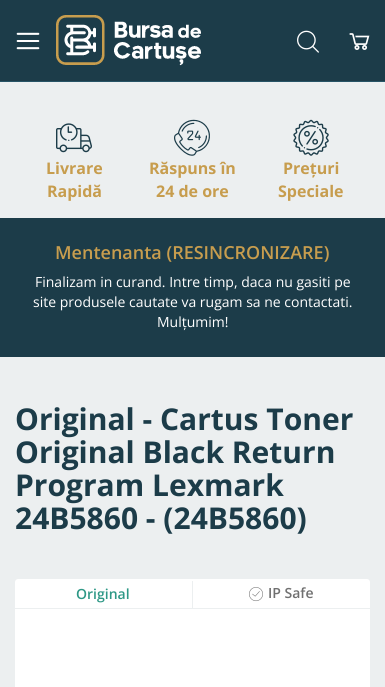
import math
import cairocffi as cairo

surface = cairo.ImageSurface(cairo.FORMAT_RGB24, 385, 687)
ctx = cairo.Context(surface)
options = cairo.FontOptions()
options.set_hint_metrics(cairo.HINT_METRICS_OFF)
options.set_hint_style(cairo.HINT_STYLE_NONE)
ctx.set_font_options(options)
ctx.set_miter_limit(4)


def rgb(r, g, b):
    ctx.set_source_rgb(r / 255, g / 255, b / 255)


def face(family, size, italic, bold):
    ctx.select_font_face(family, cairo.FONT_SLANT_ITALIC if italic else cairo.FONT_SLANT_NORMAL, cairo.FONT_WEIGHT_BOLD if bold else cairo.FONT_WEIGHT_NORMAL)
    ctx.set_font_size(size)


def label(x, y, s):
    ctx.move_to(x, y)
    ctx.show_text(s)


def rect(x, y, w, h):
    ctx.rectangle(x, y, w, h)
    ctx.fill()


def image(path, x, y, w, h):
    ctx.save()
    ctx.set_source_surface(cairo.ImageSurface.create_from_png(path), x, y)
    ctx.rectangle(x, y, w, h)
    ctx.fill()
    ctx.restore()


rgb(236, 239, 240)
ctx.paint()
rgb(28, 60, 73)
rect(0, 0, 385, 81)
rgb(39, 84, 102)
rect(0, 81, 385, 1)
image('image0.png', 16, 32, 24, 18)
image('image1.png', 56, 15, 145, 51)
image('image2.png', 297, 30, 22, 23)
image('image3.png', 349, 33, 21, 17)
image('image4.png', 56, 123, 36, 30)
face('Open Sans', 16, 0, 1)
rgb(199, 157, 78)
label(46, 174, 'Livrare')
label(47, 197, 'Rapidă')
image('image5.png', 174, 119, 36, 37)
label(149, 174, 'Răspuns în')
label(156, 197, '24 de ore')
image('image6.png', 293, 119, 36, 37)
label(283, 174, 'Prețuri')
label(278, 197, 'Speciale')
rgb(28, 60, 73)
rect(0, 218, 385, 139)
face('Open Sans SemiBold', 18, 0, 0)
rgb(199, 157, 78)
label(55, 259, 'Mentenanta (RESINCRONIZARE)')
face('Open Sans', 14, 0, 0)
rgb(255, 255, 255)
label(35, 287, 'Finalizam in curand. Intre timp, daca nu gasiti pe')
label(33, 307, 'site produsele cautate va rugam sa ne contactati.')
label(157, 327, 'Mulțumim!')
face('Open Sans', 30, 0, 1)
rgb(28, 60, 73)
label(15, 430, 'Original - Cartus Toner')
label(15, 463, 'Original Black Return')
label(15, 496, 'Program Lexmark')
label(15, 529, '24B5860 - (24B5860)')
rgb(255, 255, 255)
ctx.new_path()
ctx.move_to(18, 579)
ctx.line_to(367, 579)
ctx.curve_to(368.5, 579, 370, 580.5, 370, 582)
ctx.line_to(370, 609)
ctx.line_to(15, 609)
ctx.line_to(15, 582)
ctx.curve_to(15, 580.5, 16.5, 579, 18, 579)
ctx.close_path()
ctx.fill()
rgb(236, 239, 240)
rect(192, 581, 1, 28)
rect(15, 608, 355, 1)
face('Open Sans SemiBold', 14, 0, 0)
rgb(46, 152, 134)
label(76, 599, 'Original')
image('image7.png', 249, 587, 14, 15)
rgb(112, 112, 112)
label(268, 598, 'IP Safe')
rgb(255, 255, 255)
rect(15, 609, 355, 78)
surface.write_to_png('render.png')
